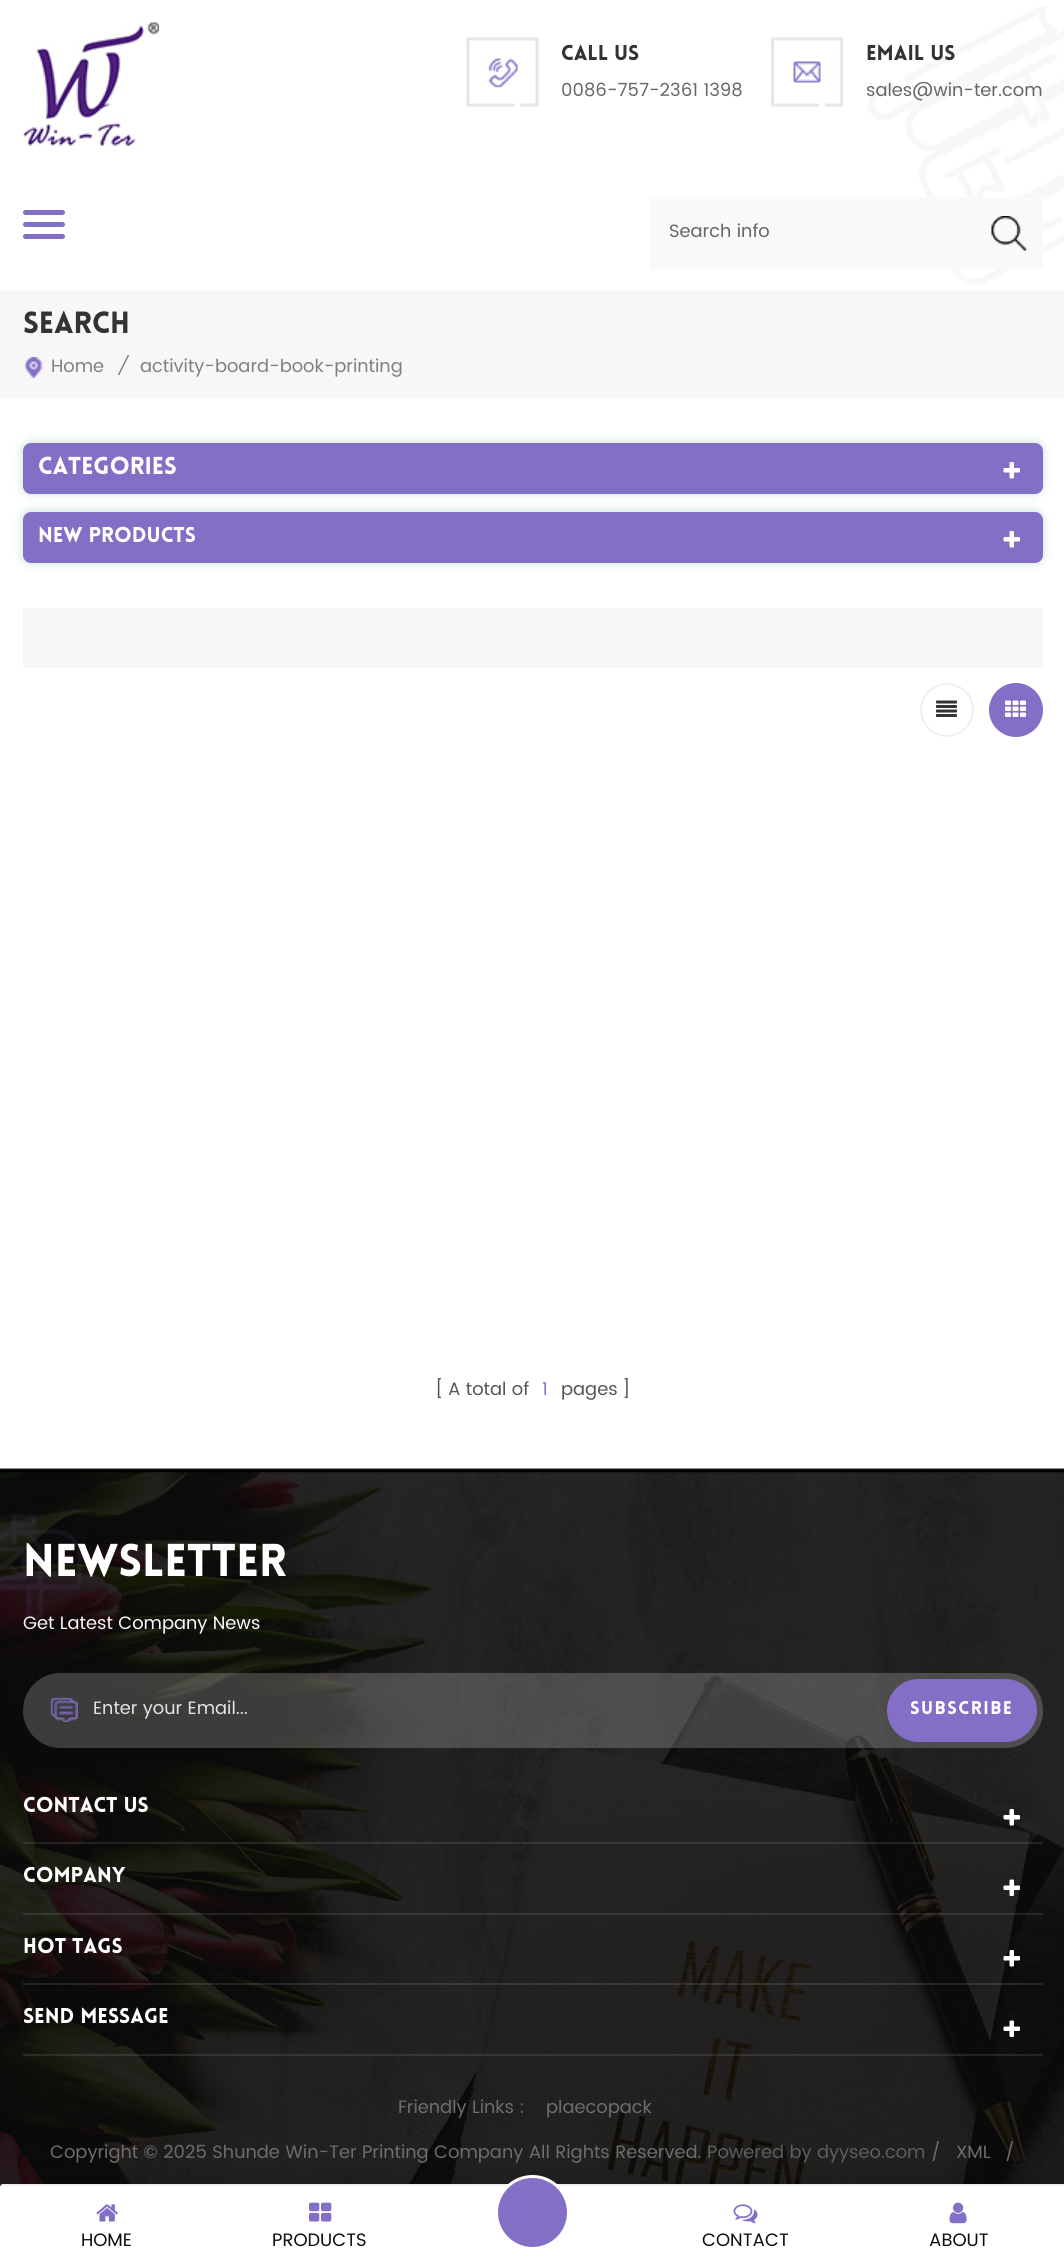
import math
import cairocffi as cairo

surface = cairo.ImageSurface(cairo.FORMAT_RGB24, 1064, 2264)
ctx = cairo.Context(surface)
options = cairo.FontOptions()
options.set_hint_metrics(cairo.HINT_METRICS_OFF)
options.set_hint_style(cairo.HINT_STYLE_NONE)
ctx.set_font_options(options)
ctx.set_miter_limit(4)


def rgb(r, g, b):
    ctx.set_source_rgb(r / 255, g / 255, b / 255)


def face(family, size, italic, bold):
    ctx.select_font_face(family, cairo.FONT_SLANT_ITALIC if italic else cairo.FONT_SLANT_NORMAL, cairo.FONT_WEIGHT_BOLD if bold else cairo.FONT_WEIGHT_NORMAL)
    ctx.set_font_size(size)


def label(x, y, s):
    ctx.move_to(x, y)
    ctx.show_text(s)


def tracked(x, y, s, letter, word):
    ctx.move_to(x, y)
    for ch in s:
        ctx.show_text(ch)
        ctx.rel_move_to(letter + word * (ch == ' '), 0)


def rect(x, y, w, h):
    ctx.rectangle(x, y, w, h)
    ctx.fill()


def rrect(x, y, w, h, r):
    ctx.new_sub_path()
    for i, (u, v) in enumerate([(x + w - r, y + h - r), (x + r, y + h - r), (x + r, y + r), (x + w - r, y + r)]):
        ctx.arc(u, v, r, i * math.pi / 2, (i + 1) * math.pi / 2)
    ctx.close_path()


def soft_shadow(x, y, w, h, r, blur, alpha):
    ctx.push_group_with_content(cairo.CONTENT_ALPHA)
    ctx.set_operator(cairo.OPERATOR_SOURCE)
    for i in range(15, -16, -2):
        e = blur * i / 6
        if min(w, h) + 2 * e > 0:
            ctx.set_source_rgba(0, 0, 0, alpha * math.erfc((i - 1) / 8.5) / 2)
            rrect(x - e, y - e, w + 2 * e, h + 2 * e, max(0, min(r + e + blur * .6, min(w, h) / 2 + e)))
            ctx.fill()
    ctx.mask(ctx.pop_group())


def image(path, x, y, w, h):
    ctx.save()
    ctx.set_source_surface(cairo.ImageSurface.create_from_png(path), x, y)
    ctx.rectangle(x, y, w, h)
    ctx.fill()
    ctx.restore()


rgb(255, 255, 255)
ctx.paint()
image('image0.png', 868, 6, 196, 279)
image('image1.png', 23, 22, 136, 124)
image('image2.png', 466, 37, 73, 70)
face('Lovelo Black', 21, 0, 0)
rgb(51, 51, 51)
label(561, 60, 'CALL US')
face('Poppins', 18, 0, 0)
rgb(102, 102, 102)
label(561, 96, '0086-757-2361 1398')
image('image3.png', 771, 37, 72, 70)
face('Lovelo Black', 21, 0, 0)
rgb(51, 51, 51)
label(866, 60, 'EMAIL US')
face('Poppins', 18, 0, 0)
rgb(102, 102, 102)
label(866, 96, 'sales@win-ter.com')
rgb(132, 111, 198)
rrect(23, 222, 42, 5, 2.5)
ctx.fill()
rrect(23, 210, 42, 5, 2.5)
ctx.fill()
rrect(23, 234, 42, 5, 2.5)
ctx.fill()
rgb(249, 249, 249)
rect(650, 197, 393, 72)
rgb(102, 102, 102)
label(669, 237, 'Search info')
image('image4.png', 991, 216, 36, 35)
rgb(247, 247, 247)
rect(0, 291, 1064, 107)
face('Lovelo Black', 30, 0, 0)
rgb(51, 51, 51)
label(23, 333, 'SEARCH')
image('image5.png', 25, 357, 18, 21)
face('Poppins', 18, 0, 0)
rgb(128, 128, 128)
label(51, 372, 'Home')
face('Poppins', 18, 1, 0)
label(117, 372, '/')
face('Poppins', 18, 0, 0)
label(140, 372, 'activity-board-book-printing')
rgb(28, 127, 123)
soft_shadow(21, 441, 1023, 54, 9, 4, 0.2)
rgb(132, 111, 198)
rrect(23, 443, 1020, 51, 8)
ctx.fill()
face('Lovelo Black', 24, 0, 0)
rgb(255, 255, 255)
label(38, 474, 'CATEGORIES')
image('image6.png', 1003, 462, 17, 17)
rgb(28, 127, 123)
soft_shadow(21, 510, 1023, 54, 9, 4, 0.2)
rgb(132, 111, 198)
rrect(23, 512, 1020, 51, 8)
ctx.fill()
face('Lovelo Black', 21, 0, 0)
rgb(255, 255, 255)
label(38, 542, 'NEW PRODUCTS')
image('image6.png', 1003, 531, 17, 17)
rgb(247, 247, 247)
rect(23, 608, 1020, 60)
ctx.arc(947, 710, 26, 0, 2 * math.pi)
rgb(239, 239, 239)
ctx.stroke()
image('image7.png', 936, 700, 21, 17)
rgb(132, 111, 198)
ctx.arc(1016, 710, 26, 0, 2 * math.pi)
ctx.fill_preserve()
ctx.stroke()
image('image8.png', 1005, 700, 21, 17)
face('Poppins', 18, 0, 0)
rgb(85, 85, 85)
label(435, 1395, '[')
label(448, 1395, 'A total of')
rgb(132, 111, 198)
label(542, 1395, '1')
rgb(85, 85, 85)
label(561, 1395, 'pages')
label(622, 1395, ']')
image('image9.png', 0, 1468, 1064, 719)
face('Lovelo Black', 45, 0, 0)
rgb(255, 255, 255)
label(23, 1576, 'NEWSLETTER')
face('Poppins', 18, 0, 0)
rgb(248, 248, 248)
label(23, 1629, 'Get Latest Company News')
image('image10.png', 0, 1514, 83, 106)
ctx.set_source_rgba(1, 1, 1, 0.2)
rrect(23, 1673, 1020, 75, 37.5)
ctx.fill()
image('image11.png', 50, 1698, 28, 24)
rgb(227, 227, 227)
label(93, 1714, 'Enter your Email...')
rgb(132, 111, 198)
rrect(887, 1679, 150, 63, 31.5)
ctx.fill()
face('Lovelo Black', 18, 0, 0)
rgb(255, 255, 255)
tracked(910, 1714, 'SUBSCRIBE', 1.5, 0)
ctx.set_source_rgba(1, 1, 1, 0.1)
rect(23, 1842, 1020, 2)
face('Lovelo Black', 21, 0, 0)
rgb(255, 255, 255)
label(23, 1812, 'CONTACT US')
image('image12.png', 1003, 1809, 17, 17)
ctx.set_source_rgba(1, 1, 1, 0.1)
rect(23, 1913, 1020, 2)
rgb(255, 255, 255)
label(23, 1882, 'COMPANY')
image('image13.png', 1003, 1879, 17, 17)
ctx.set_source_rgba(1, 1, 1, 0.1)
rect(23, 1983, 1020, 2)
rgb(255, 255, 255)
label(23, 1953, 'HOT TAGS')
image('image14.png', 1003, 1950, 17, 17)
ctx.set_source_rgba(1, 1, 1, 0.1)
rect(23, 2054, 1020, 2)
rgb(255, 255, 255)
label(23, 2023, 'SEND MESSAGE')
image('image15.png', 1003, 2020, 17, 17)
face('Poppins', 18, 0, 0)
rgb(109, 109, 109)
label(398, 2113, 'Friendly Links :')
label(546, 2113, 'plaecopack')
label(50, 2158, 'Copyright © 2025 Shunde Win-Ter Printing Company All Rights Reserved.')
rgb(94, 94, 94)
label(707, 2158, 'Powered by dyyseo.com')
rgb(109, 109, 109)
label(931, 2158, '/')
label(956, 2158, 'XML')
label(1005, 2158, '/')
rgb(0, 0, 0)
soft_shadow(0, 2184, 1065, 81, 3, 11, 0.2)
rgb(255, 255, 255)
ctx.new_path()
ctx.move_to(3, 2184)
ctx.line_to(1062, 2184)
ctx.curve_to(1063.5, 2184, 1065, 2185.5, 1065, 2187)
ctx.line_to(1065, 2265)
ctx.line_to(0, 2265)
ctx.line_to(0, 2187)
ctx.curve_to(0, 2185.5, 1.5, 2184, 3, 2184)
ctx.close_path()
ctx.fill()
rgb(238, 238, 238)
rect(2, 2184, 1062, 2)
rgb(132, 111, 198)
ctx.arc(532.5, 2212.5, 36, 0, 2 * math.pi)
ctx.fill_preserve()
rgb(255, 255, 255)
ctx.set_line_width(3)
ctx.stroke()
image('image16.png', 96, 2204, 22, 18)
rgb(13, 13, 13)
label(81, 2246, 'HOME')
image('image17.png', 309, 2202, 23, 20)
label(272, 2246, 'PRODUCTS')
image('image18.png', 733, 2204, 25, 20)
label(702, 2246, 'CONTACT')
image('image19.png', 949, 2202, 18, 22)
label(929, 2246, 'ABOUT')
surface.write_to_png('render.png')
